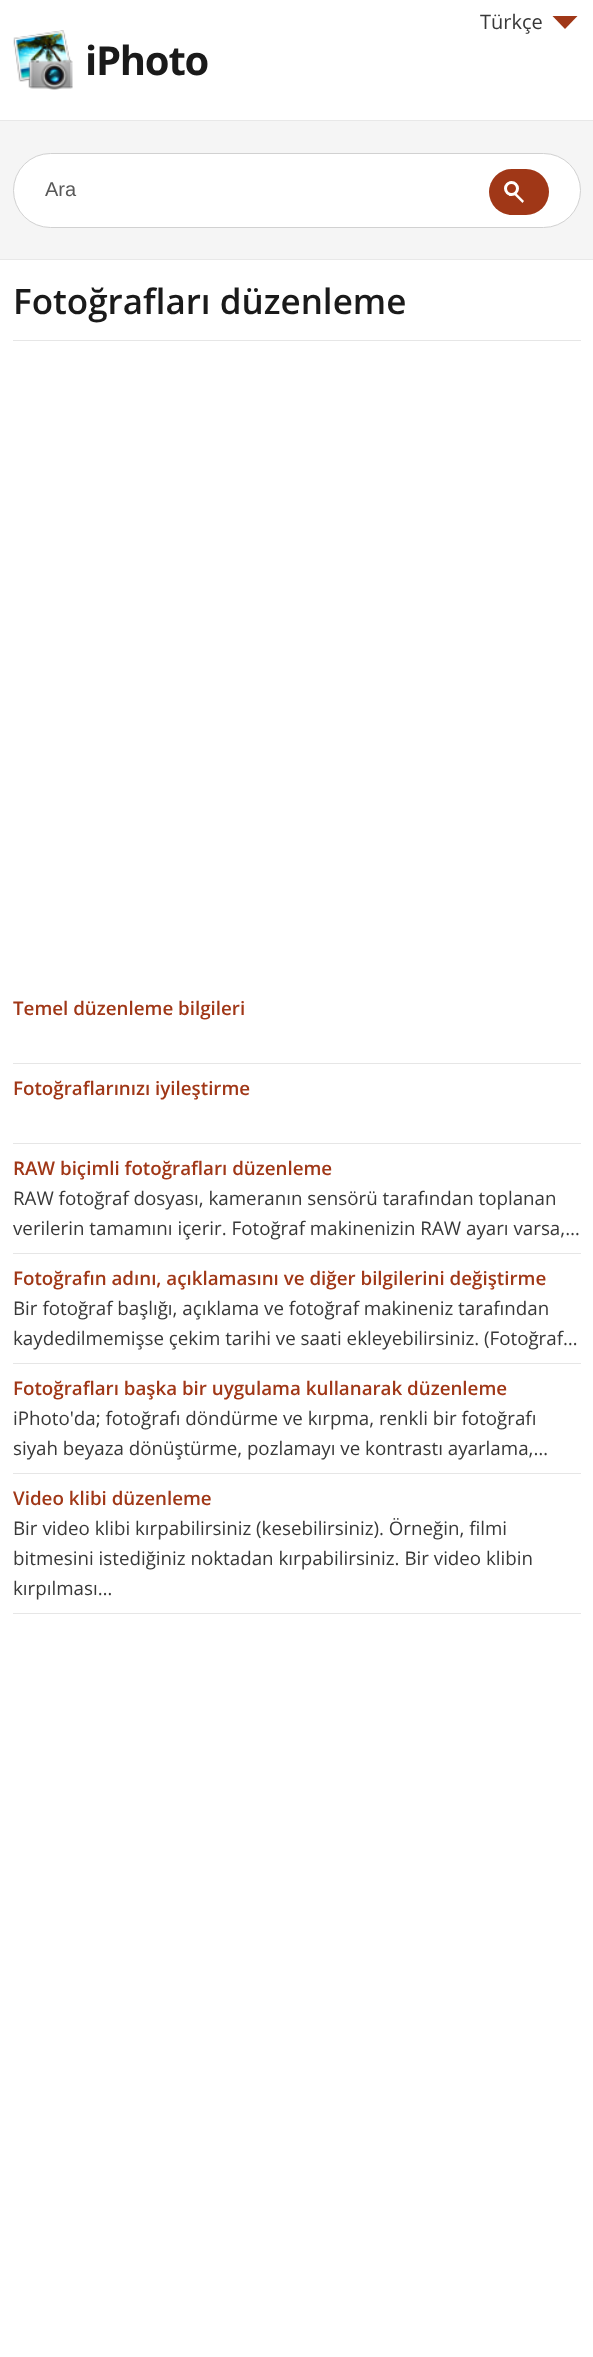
<svg xmlns="http://www.w3.org/2000/svg" width="593" height="2357" viewBox="0 0 593 2357">
  <style>
    .t1 { font: 20px Open Sans; fill: #383838; }
    .t2 { font: bold 40px Open Sans; letter-spacing: -1.25px; fill: #1a1a1a; }
    .t3 { font: 20px Liberation Sans; fill: #595959; }
    .t4 { font: 600 35px Open Sans; fill: #1a1a1a; }
    .t5 { font: 600 18.75px Open Sans; fill: #a03717; }
    .t6 { font: 18.75px Open Sans; fill: #383838; }
  </style>
  <rect width="100%" height="100%" fill="#fff"/>
  <text x="480" y="29" class="t1">Türkçe</text>
  <path d="M552.5 16H577.5L565 29Z" fill="#a03717"/>
  <image x="13" y="30" width="60" height="60" href="images/1.png"/>
  <text x="85" y="75" class="t2">iPhoto</text>
  <rect x="0" y="121" width="593" height="138" fill="#f5f5f5"/>
  <rect x="0" y="120" width="593" height="1" fill="#e8e8e8"/>
  <rect x="0" y="259" width="593" height="1" fill="#e8e8e8"/>
  <rect x="13.5" y="153.5" width="567" height="74" rx="37" fill="#fff" stroke="#d1d1d1"/>
  <text x="45" y="196" class="t3">Ara</text>
  <rect x="489" y="169" width="60" height="46" rx="23" fill="#a03717"/>
  <circle cx="511.5" cy="188.5" r="6" fill="none" stroke="#fff" stroke-width="3"/>
  <path d="M515 192L524 201L522.5 203L513.5 194Z" fill="#fff"/>
  <rect x="13" y="340" width="568" height="1" fill="#e6e6e6"/>
  <text x="13" y="314" class="t4">Fotoğrafları düzenleme</text>
  <text x="13" y="1015" class="t5">Temel düzenleme bilgileri</text>
  <rect x="13" y="1063" width="568" height="1" fill="#e6e6e6"/>
  <text x="13" y="1095" class="t5">Fotoğraflarınızı iyileştirme</text>
  <rect x="13" y="1143" width="568" height="1" fill="#e6e6e6"/>
  <text x="13" y="1175" class="t5">RAW biçimli fotoğrafları düzenleme</text>
  <text x="13" y="1205" class="t6">RAW fotoğraf dosyası, kameranın sensörü tarafından toplanan</text>
  <text x="13" y="1235" class="t6">verilerin tamamını içerir. Fotoğraf makinenizin RAW ayarı varsa,…</text>
  <rect x="13" y="1253" width="568" height="1" fill="#e6e6e6"/>
  <text x="13" y="1285" class="t5">Fotoğrafın adını, açıklamasını ve diğer bilgilerini değiştirme</text>
  <text x="13" y="1315" class="t6">Bir fotoğraf başlığı, açıklama ve fotoğraf makineniz tarafından</text>
  <text x="13" y="1345" class="t6">kaydedilmemişse çekim tarihi ve saati ekleyebilirsiniz. (Fotoğraf…</text>
  <rect x="13" y="1363" width="568" height="1" fill="#e6e6e6"/>
  <text x="13" y="1395" class="t5">Fotoğrafları başka bir uygulama kullanarak düzenleme</text>
  <text x="13" y="1425" class="t6">iPhoto'da; fotoğrafı döndürme ve kırpma, renkli bir fotoğrafı</text>
  <text x="13" y="1455" class="t6">siyah beyaza dönüştürme, pozlamayı ve kontrastı ayarlama,…</text>
  <rect x="13" y="1473" width="568" height="1" fill="#e6e6e6"/>
  <text x="13" y="1505" class="t5">Video klibi düzenleme</text>
  <text x="13" y="1535" class="t6">Bir video klibi kırpabilirsiniz (kesebilirsiniz). Örneğin, filmi</text>
  <text x="13" y="1565" class="t6">bitmesini istediğiniz noktadan kırpabilirsiniz. Bir video klibin</text>
  <text x="13" y="1595" class="t6">kırpılması…</text>
  <rect x="13" y="1613" width="568" height="1" fill="#e6e6e6"/>
</svg>
